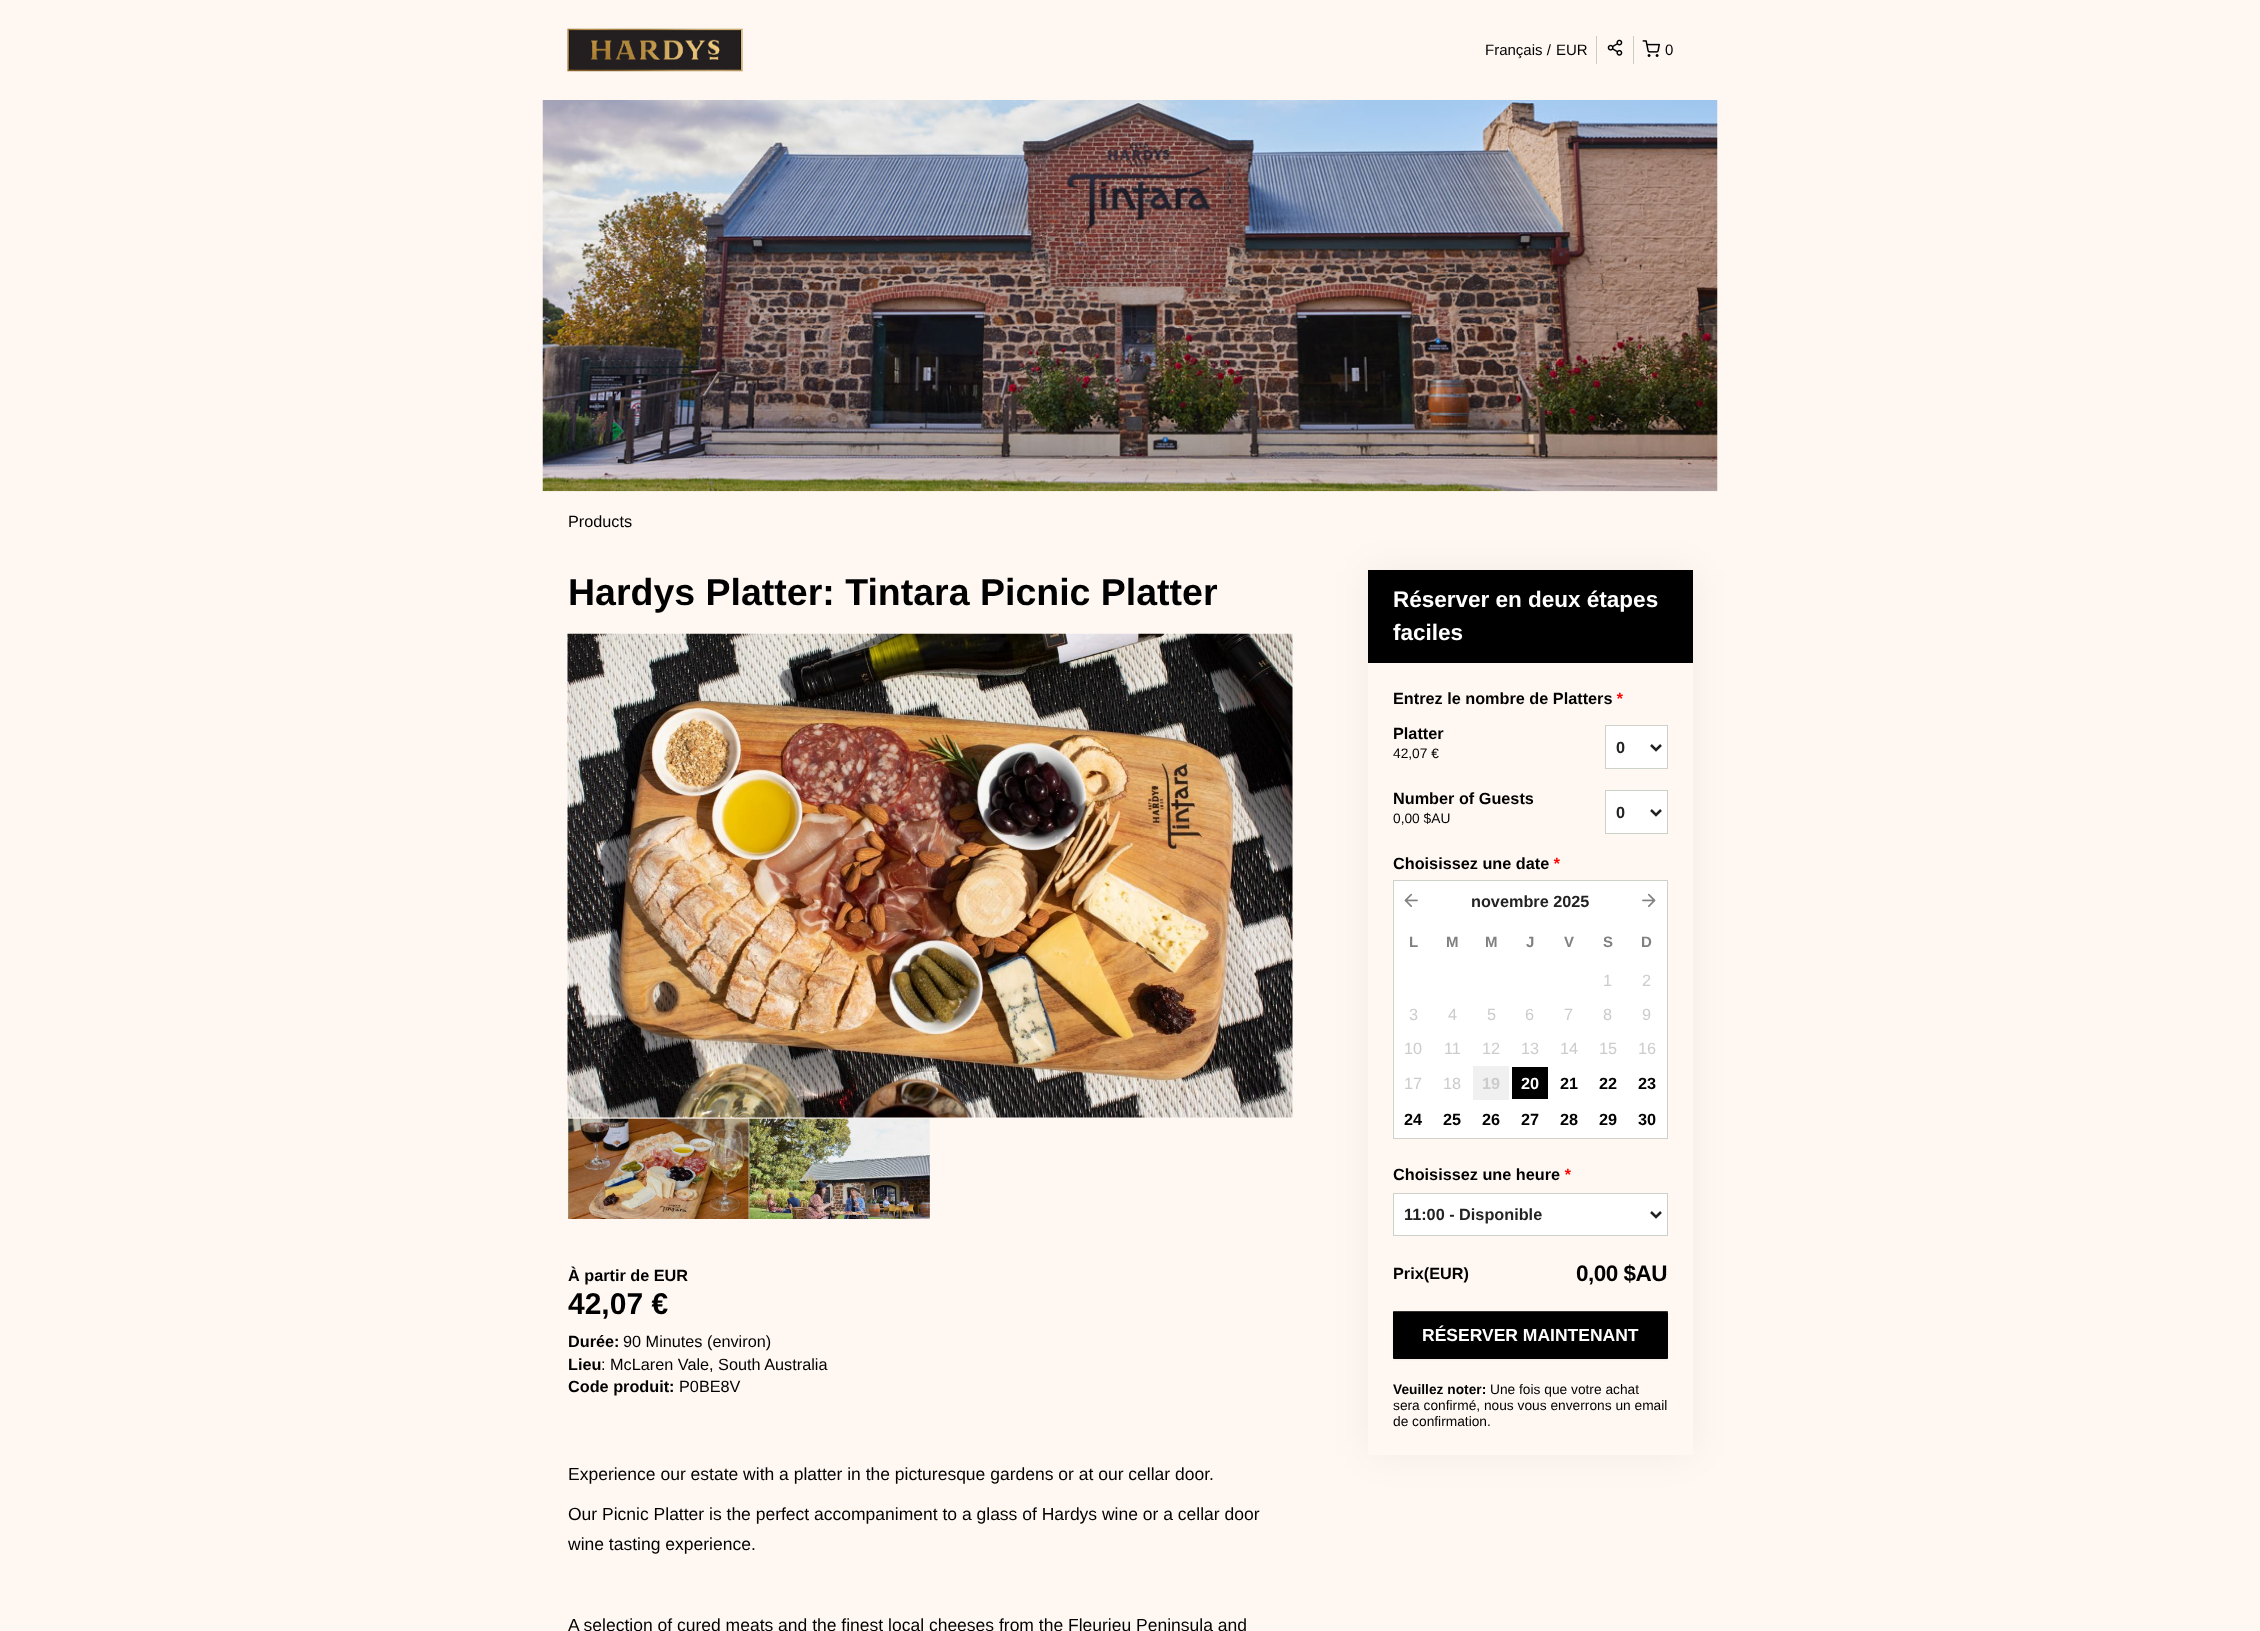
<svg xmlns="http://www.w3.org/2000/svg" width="2260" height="1631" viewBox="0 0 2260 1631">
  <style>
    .t1 { font: 15px Liberation Sans; fill: #000; }
    .t2 { font: 16.25px Liberation Sans; fill: #000; }
    .t3 { font: bold 37.5px Liberation Sans; fill: #000; }
    .t4 { font: bold 16.25px Liberation Sans; fill: #000; }
    .t5 { font: bold 30px Liberation Sans; fill: #000; }
    .t6 { font: 17.5px Liberation Sans; fill: #000; }
    .t7 { font: bold 22.5px Liberation Sans; fill: #fff; }
    .t8 { font: italic bold 16.25px Liberation Sans; fill: #f00; }
    .t9 { font: 13.75px Liberation Sans; fill: #000; }
    .t10 { font: bold 16.25px Liberation Sans; fill: #222; }
    .t11 { font: bold 15px Liberation Sans; fill: #808080; }
    .t12 { font: 16.25px Liberation Sans; fill: #ccc; }
    .t13 { font: bold 16.25px Liberation Sans; fill: #ccc; }
    .t14 { font: bold 16.25px Liberation Sans; fill: #fff; }
    .t15 { font: bold 22.5px Liberation Sans; letter-spacing: -0.5px; fill: #000; }
    .t16 { font: bold 17.5px Liberation Sans; fill: #fff; }
    .t17 { font: bold 13.75px Liberation Sans; fill: #000; }
  </style>
  <rect width="100%" height="100%" fill="#fef7f2"/>
  <image x="567" y="28" width="176" height="44" href="images/1.png"/>
  <rect x="1596" y="36" width="1" height="28" fill="#cbcdc3"/>
  <text x="1485" y="55" class="t1">Français /</text>
  <text x="1556" y="55" class="t1">EUR</text>
  <rect x="1633" y="36" width="1" height="28" fill="#cbcdc3"/>
  <image x="1607" y="39" width="16" height="17" href="images/2.png"/>
  <image x="1642" y="40" width="18" height="17" href="images/3.png"/>
  <text x="1665" y="55" class="t1">0</text>
  <image x="542" y="100" width="1176" height="392" href="images/4.png"/>
  <text x="568" y="527" class="t2">Products</text>
  <text x="568" y="605" class="t3">Hardys Platter: Tintara Picnic Platter</text>
  <image x="567" y="633" width="726" height="485" href="images/5.png"/>
  <image x="568" y="1118" width="181" height="101" href="images/6.png"/>
  <rect x="568" y="1119" width="1" height="100" fill="#98a39480"/>
  <image x="749" y="1118" width="181" height="101" href="images/7.png"/>
  <rect x="749" y="1119" width="1" height="100" fill="#98a39480"/>
  <text x="568" y="1281" class="t4">À partir de EUR</text>
  <text x="568" y="1314" class="t5">42,07 €</text>
  <text x="568" y="1347" class="t4">Durée:</text>
  <text x="623" y="1347" class="t2">90 Minutes (environ)</text>
  <text x="568" y="1370" class="t4">Lieu</text>
  <text x="601" y="1370" class="t2">: McLaren Vale, South Australia</text>
  <text x="568" y="1392" class="t4">Code produit:</text>
  <text x="679" y="1392" class="t2">P0BE8V</text>
  <text x="568" y="1480" class="t6">Experience our estate with a platter in the picturesque gardens or at our cellar door.</text>
  <text x="568" y="1520" class="t6">Our Picnic Platter is the perfect accompaniment to a glass of Hardys wine or a cellar door</text>
  <text x="568" y="1550" class="t6">wine tasting experience.</text>
  <text x="568" y="1631" class="t6">A selection of cured meats and the finest local cheeses from the Fleurieu Peninsula and</text>
  <rect x="1368" y="570" width="325" height="885" fill="#0000000d" filter="blur(19px)"/>
  <rect x="1368" y="663" width="325" height="792" fill="#fef7f2"/>
  <rect x="1368" y="570" width="325" height="93" fill="#000"/>
  <text x="1393" y="607" class="t7">Réserver en deux étapes</text>
  <text x="1393" y="640" class="t7">faciles</text>
  <text x="1393" y="704" class="t4">Entrez le nombre de Platters</text>
  <text x="1616" y="704" class="t8">*</text>
  <text x="1393" y="739" class="t4">Platter</text>
  <text x="1393" y="758" class="t9">42,07 €</text>
  <rect x="1605.5" y="725.5" width="62" height="43" fill="#fff" stroke="#ccd1ca"/>
  <path d="M1651 745L1656 750L1661 745" fill="none" stroke="#222" stroke-width="2.5"/>
  <text x="1616" y="753" class="t10">0</text>
  <text x="1393" y="804" class="t4">Number of Guests</text>
  <text x="1393" y="823" class="t9">0,00 $AU</text>
  <rect x="1605.5" y="790.5" width="62" height="43" fill="#fff" stroke="#ccd1ca"/>
  <path d="M1651 810L1656 815L1661 810" fill="none" stroke="#222" stroke-width="2.5"/>
  <text x="1616" y="818" class="t10">0</text>
  <text x="1393" y="869" class="t4">Choisissez une date</text>
  <text x="1553" y="869" class="t8">*</text>
  <rect x="1393.5" y="880.5" width="274" height="258" fill="#fff" stroke="#ccd1ca"/>
  <image x="1392" y="880" width="1" height="259" href="images/8.png"/>
  <image x="1404" y="893" width="14" height="14" href="images/9.png"/>
  <text x="1471" y="907" class="t10">novembre 2025</text>
  <image x="1642" y="893" width="14" height="14" href="images/10.png"/>
  <text x="1409" y="947" class="t11">L</text>
  <text x="1446" y="947" class="t11">M</text>
  <text x="1485" y="947" class="t11">M</text>
  <text x="1526" y="947" class="t11">J</text>
  <text x="1564" y="947" class="t11">V</text>
  <text x="1603" y="947" class="t11">S</text>
  <text x="1641" y="947" class="t11">D</text>
  <text x="1603" y="986" class="t12">1</text>
  <text x="1642" y="986" class="t12">2</text>
  <text x="1409" y="1020" class="t12">3</text>
  <text x="1448" y="1020" class="t12">4</text>
  <text x="1487" y="1020" class="t12">5</text>
  <text x="1525" y="1020" class="t12">6</text>
  <text x="1564" y="1020" class="t12">7</text>
  <text x="1603" y="1020" class="t12">8</text>
  <text x="1642" y="1020" class="t12">9</text>
  <text x="1404" y="1054" class="t12">10</text>
  <text x="1444" y="1054" class="t12">11</text>
  <text x="1482" y="1054" class="t12">12</text>
  <text x="1521" y="1054" class="t12">13</text>
  <text x="1560" y="1054" class="t12">14</text>
  <text x="1599" y="1054" class="t12">15</text>
  <text x="1638" y="1054" class="t12">16</text>
  <text x="1404" y="1089" class="t12">17</text>
  <text x="1443" y="1089" class="t12">18</text>
  <rect x="1473" y="1066" width="36" height="34" fill="#f0f0f0"/>
  <text x="1482" y="1089" class="t13">19</text>
  <rect x="1512" y="1067" width="36" height="32" fill="#000"/>
  <text x="1521" y="1089" class="t14">20</text>
  <text x="1560" y="1089" class="t4">21</text>
  <text x="1599" y="1089" class="t4">22</text>
  <text x="1638" y="1089" class="t4">23</text>
  <text x="1404" y="1125" class="t4">24</text>
  <text x="1443" y="1125" class="t4">25</text>
  <text x="1482" y="1125" class="t4">26</text>
  <text x="1521" y="1125" class="t4">27</text>
  <text x="1560" y="1125" class="t4">28</text>
  <text x="1599" y="1125" class="t4">29</text>
  <text x="1638" y="1125" class="t4">30</text>
  <text x="1393" y="1180" class="t4">Choisissez une heure</text>
  <text x="1564" y="1180" class="t8">*</text>
  <rect x="1393.5" y="1193.5" width="274" height="42" fill="#fff" stroke="#ccd1ca"/>
  <path d="M1651 1212L1656 1217L1661 1212" fill="none" stroke="#222" stroke-width="2.5"/>
  <text x="1404" y="1220" class="t10">11:00 - Disponible</text>
  <text x="1393" y="1279" class="t4">Prix(EUR)</text>
  <text x="1576" y="1281" class="t15">0,00 $AU</text>
  <rect x="1393" y="1313" width="275" height="47" rx="1" fill="#0000000d" filter="blur(1px)"/>
  <rect x="1393" y="1311" width="275" height="48" rx="1" fill="#000"/>
  <path d="M1394 1312H1666C1667 1312 1668 1313 1668 1314C1668 1313 1668 1311 1667 1311H1394L1393 1312Z" fill="#ffffff33"/>
  <text x="1422" y="1341" class="t16">RÉSERVER MAINTENANT</text>
  <text x="1393" y="1394" class="t17">Veuillez noter:</text>
  <text x="1490" y="1394" class="t9">Une fois que votre achat</text>
  <text x="1393" y="1410" class="t9">sera confirmé, nous vous enverrons un email</text>
  <text x="1393" y="1426" class="t9">de confirmation.</text>
</svg>
